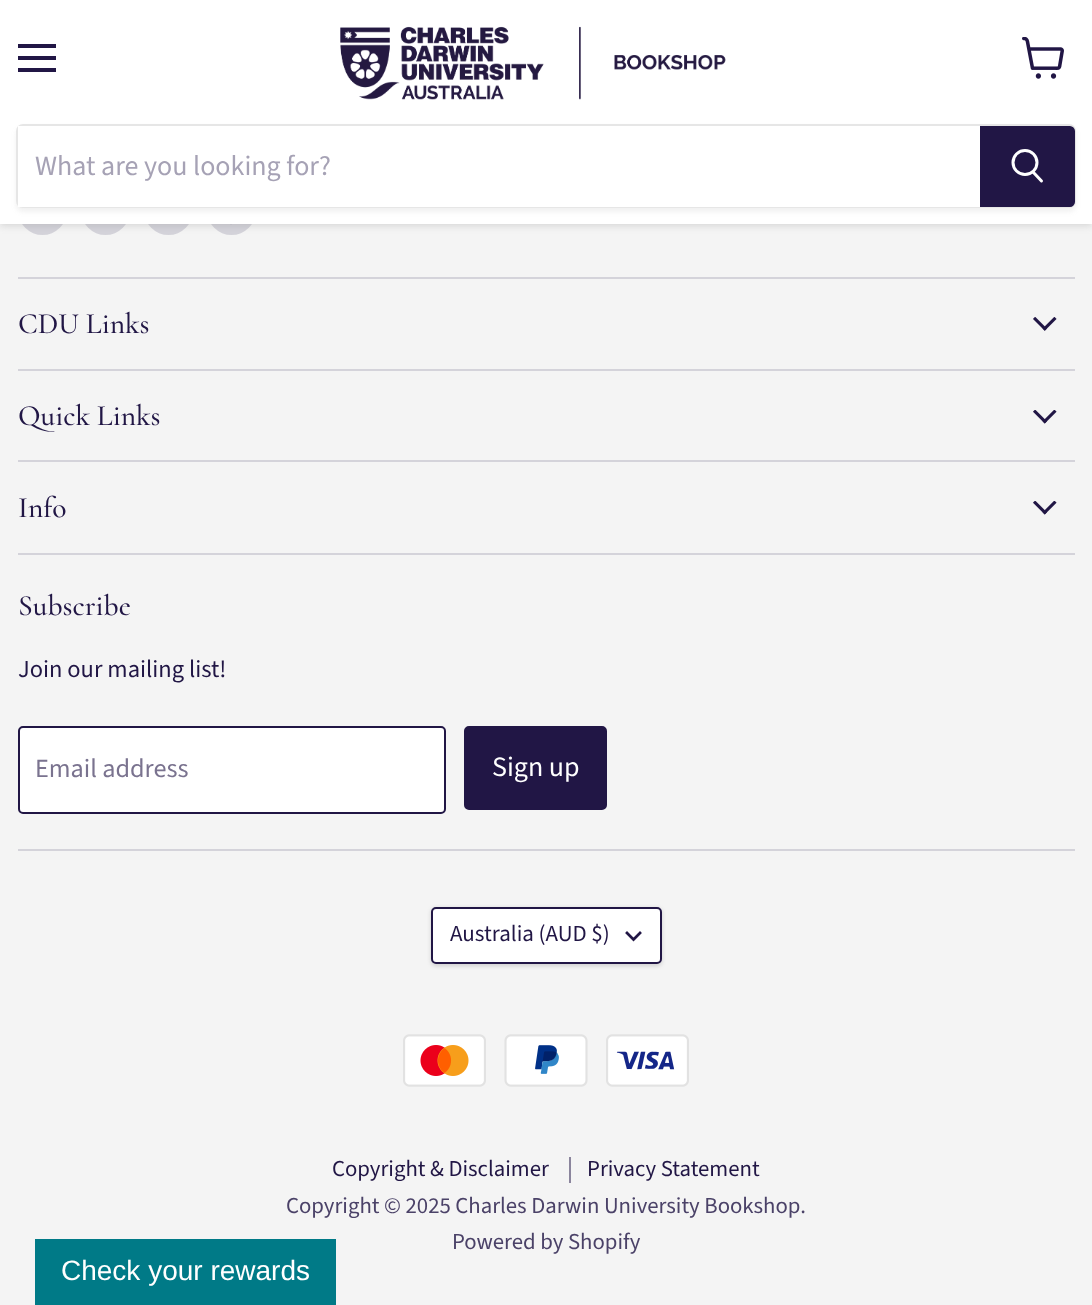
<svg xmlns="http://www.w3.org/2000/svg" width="1092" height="1305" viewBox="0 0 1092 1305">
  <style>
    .t1 { font: 28px Source Sans Pro; fill: #a6a2b5; }
    .t2 { font: 500 29.5px Cormorant; fill: #211645; }
    .t3 { font: 24.5px Source Sans Pro; fill: #211645; }
    .t4 { font: 26.25px Source Sans Pro; fill: #7a738f; }
    .t5 { font: 28px Source Sans Pro; fill: #fff; }
    .t6 { font: 23px Source Sans Pro; fill: #211645; }
    .t7 { font: 22.75px Source Sans Pro; fill: #211645; }
    .t8 { font: 22.75px Source Sans Pro; fill: #4b4268; }
    .t9 { font: 28px Liberation Sans; fill: #fff; }
  </style>
  <rect width="100%" height="100%" fill="#f4f4f4"/>
  <circle cx="42.5" cy="210.5" r="24.5" fill="#d4d3da"/>
  <circle cx="105.5" cy="210.5" r="24.5" fill="#d4d3da"/>
  <circle cx="168.5" cy="210.5" r="24.5" fill="#d4d3da"/>
  <circle cx="231.5" cy="210.5" r="24.5" fill="#d4d3da"/>
  <image x="230" y="224" width="2" height="1" href="images/3.png"/>
  <rect x="0" y="2" width="1092" height="224" fill="#80808040" filter="blur(3.5px)"/>
  <rect x="0" y="0" width="1092" height="224" fill="#fff"/>
  <rect x="18" y="44" width="38" height="4" fill="#211645"/>
  <rect x="18" y="56" width="38" height="4" fill="#211645"/>
  <rect x="18" y="68" width="38" height="4" fill="#211645"/>
  <image x="1022" y="37" width="42" height="42" href="images/1.png"/>
  <image x="340" y="26" width="386" height="74" href="images/2.png"/>
  <rect x="16" y="128" width="1060" height="84" rx="7" fill="#8080801c" filter="blur(2.5px)"/>
  <rect x="17" y="125" width="1058" height="82" rx="6" fill="none" stroke="#e6e6e6" stroke-width="2"/>
  <rect x="18" y="126" width="962" height="81" fill="#fff"/>
  <text x="35" y="175" class="t1">What are you looking for?</text>
  <path d="M981 127H1070C1072 127 1074 129 1074 131V202C1074 204 1072 206 1070 206H981Z" fill="#211645" stroke="#211645" stroke-width="2"/>
  <path d="M1041.5 181L1033.5 172.5" fill="none" stroke="#fff" stroke-width="3" stroke-linecap="round"/>
  <circle cx="1025" cy="162.5" r="12" fill="none" stroke="#fff" stroke-width="3"/>
  <rect x="18" y="277" width="1057" height="2" fill="#d4d3da"/>
  <rect x="18" y="369" width="1057" height="2" fill="#d4d3da"/>
  <text x="18" y="333" class="t2">CDU Links</text>
  <image x="1033" y="317" width="24" height="14" href="images/4.png"/>
  <rect x="18" y="460" width="1057" height="2" fill="#d4d3da"/>
  <text x="18" y="425" class="t2">Quick Links</text>
  <image x="1033" y="410" width="24" height="14" href="images/5.png"/>
  <rect x="18" y="553" width="1057" height="2" fill="#d4d3da"/>
  <text x="18" y="517" class="t2">Info</text>
  <image x="1033" y="501" width="24" height="14" href="images/5.png"/>
  <rect x="18" y="849" width="1057" height="2" fill="#d4d3da"/>
  <text x="18" y="615" class="t2">Subscribe</text>
  <text x="18" y="677" class="t3">Join our mailing list!</text>
  <rect x="19" y="727" width="426" height="86" rx="4" fill="#fff" stroke="#211645" stroke-width="2"/>
  <text x="35" y="777" class="t4">Email address</text>
  <rect x="465" y="727" width="141" height="82" rx="4" fill="#211645" stroke="#211645" stroke-width="2"/>
  <text x="492" y="776" class="t5">Sign up</text>
  <rect x="431" y="908" width="231" height="58" rx="5" fill="#00000026" filter="blur(2px)"/>
  <rect x="432" y="908" width="229" height="55" rx="4" fill="#fff" stroke="#211645" stroke-width="2"/>
  <text x="450" y="941" class="t6">Australia (AUD $)</text>
  <path d="M633.5 939.5L640 933M633.5 939.5L627 933" fill="none" stroke="#211645" stroke-width="2.7" stroke-linecap="square"/>
  <image x="403" y="1034" width="83" height="53" href="images/6.png"/>
  <image x="504" y="1034" width="84" height="53" href="images/7.png"/>
  <image x="606" y="1034" width="83" height="53" href="images/8.png"/>
  <rect x="569" y="1157" width="2" height="26" fill="#8b859d"/>
  <text x="332" y="1176" class="t7">Copyright &amp; Disclaimer</text>
  <text x="587" y="1176" class="t7">Privacy Statement</text>
  <text x="286" y="1213" class="t8">Copyright © 2025 Charles Darwin University Bookshop.</text>
  <text x="452" y="1249" class="t8">Powered by Shopify</text>
  <rect x="35" y="1239" width="301" height="66" fill="#007a87"/>
  <text x="61" y="1280" class="t9">Check your rewards</text>
</svg>
